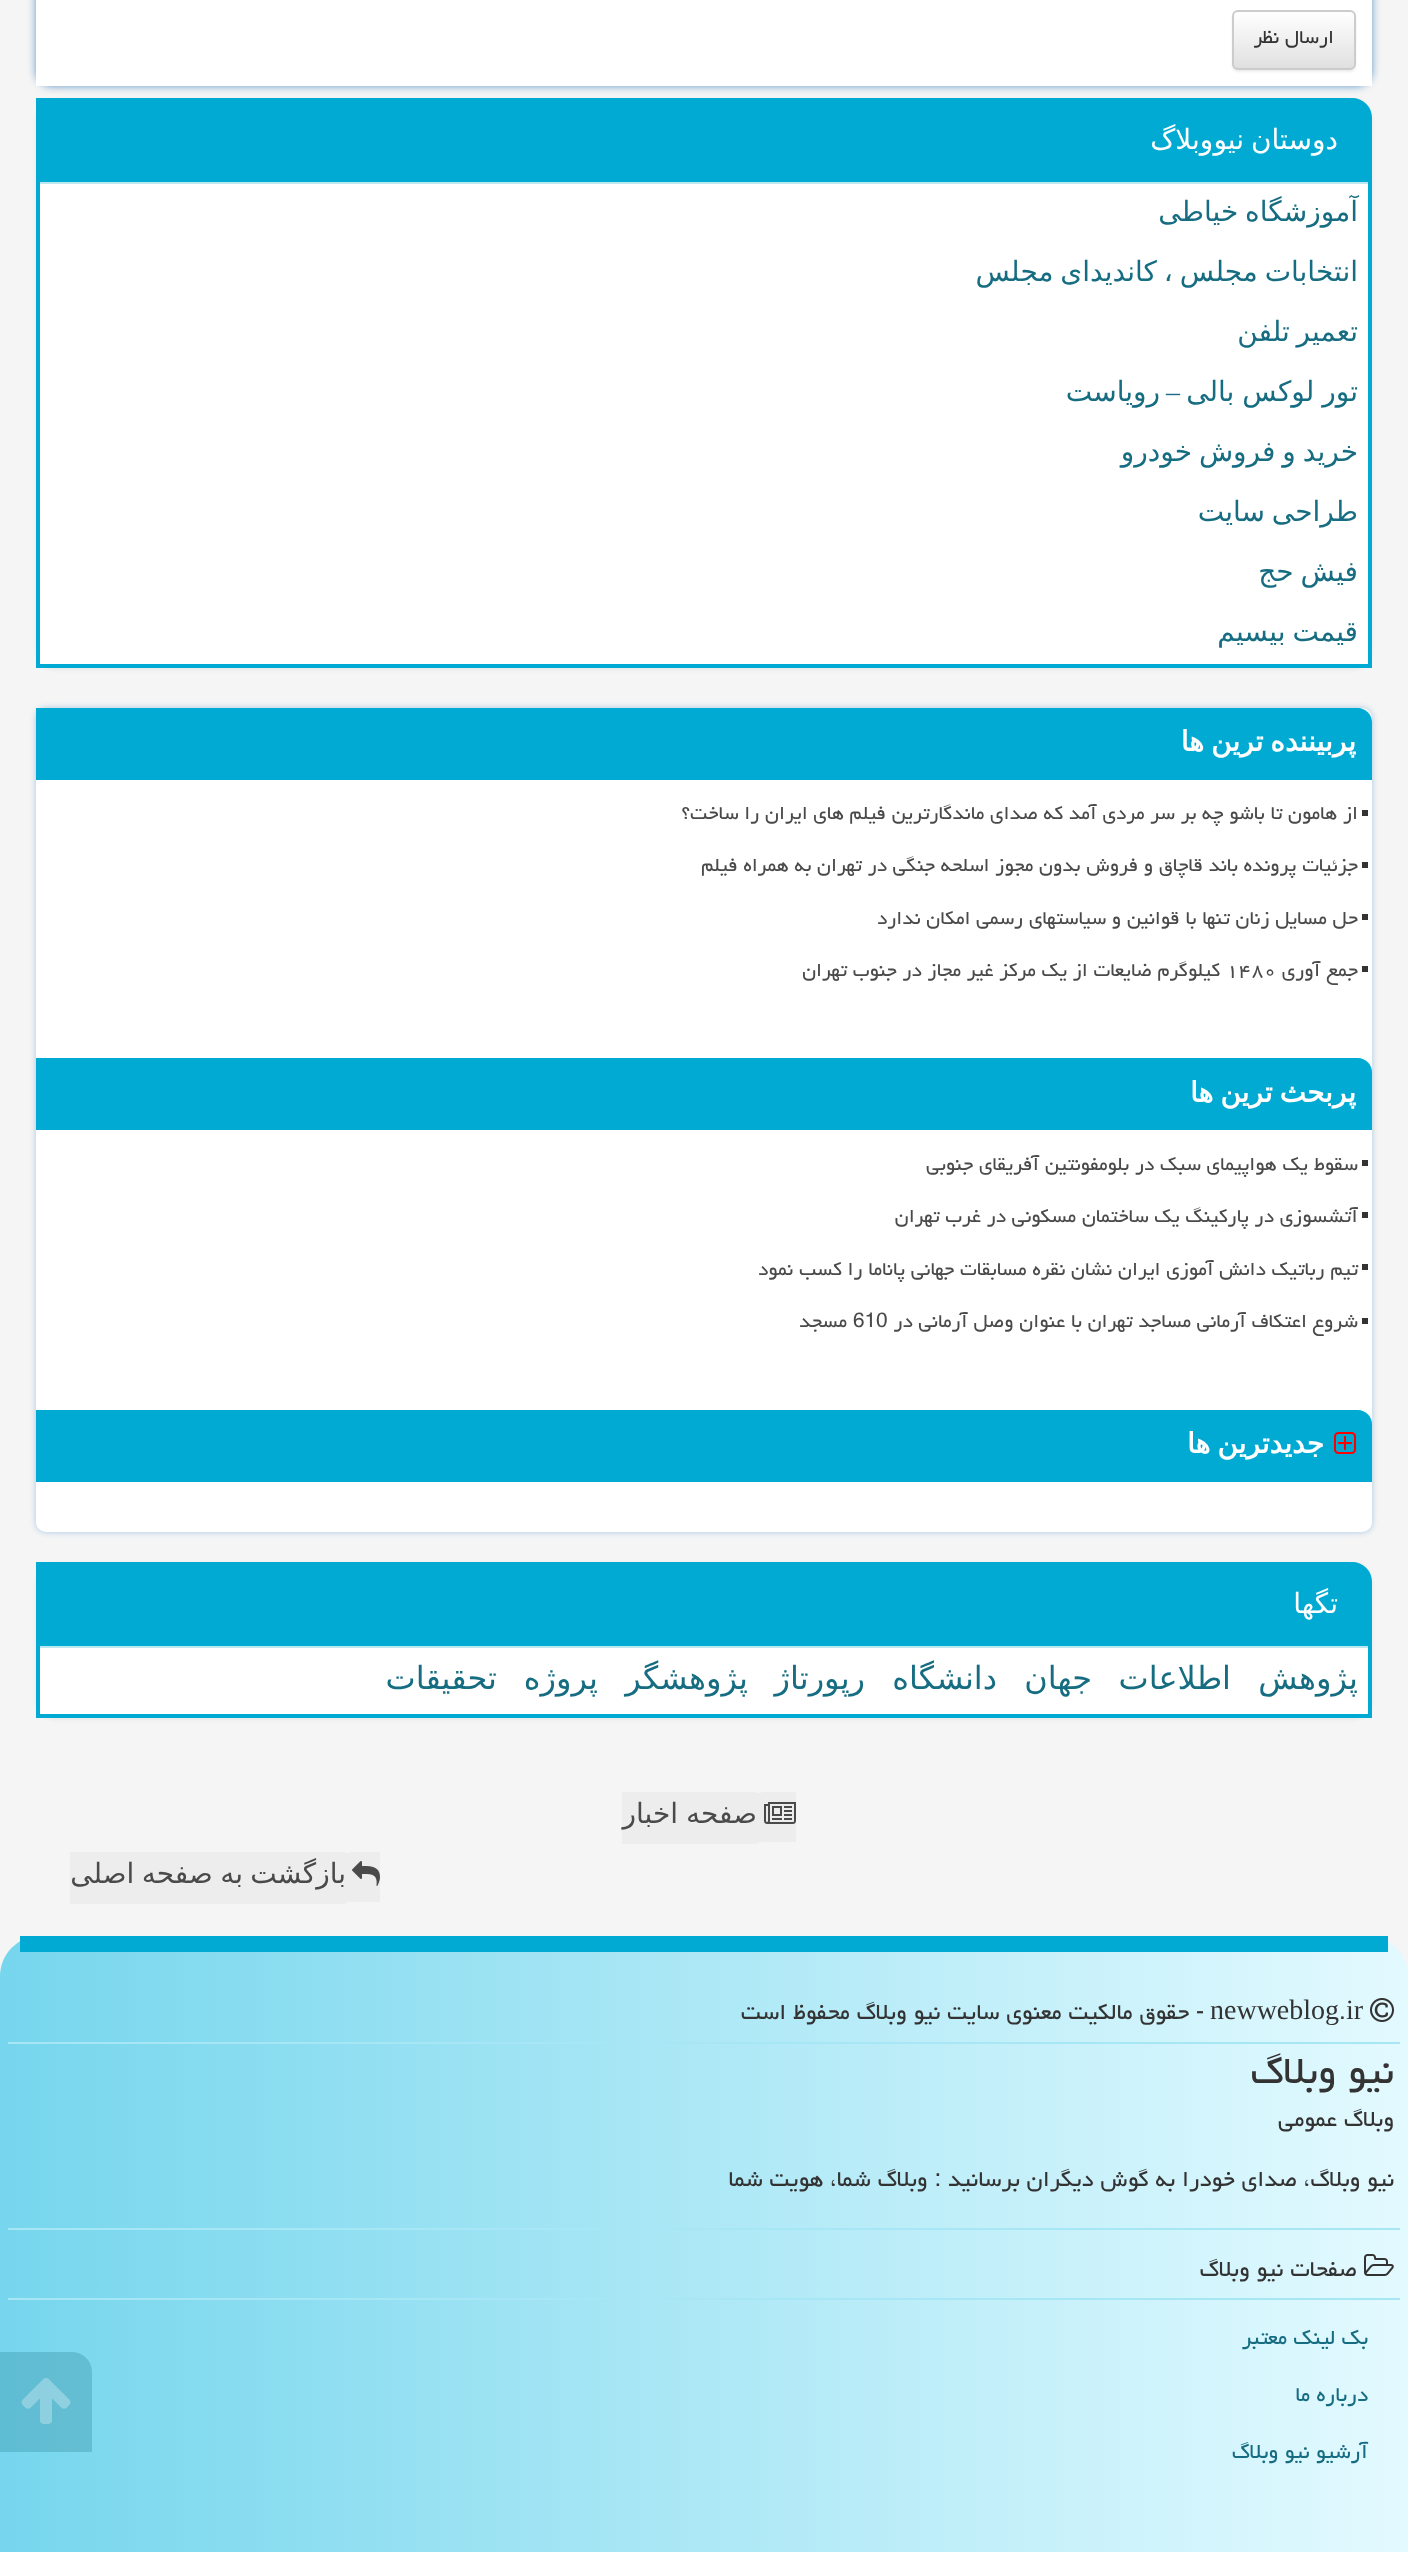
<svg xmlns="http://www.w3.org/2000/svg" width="1408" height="2552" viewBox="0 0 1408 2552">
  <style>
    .t1 { font: 24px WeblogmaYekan; direction: rtl; fill: #333; }
    .t2 { font: 28px DejaVu Sans; direction: rtl; fill: #fff; }
    .t3 { font: 28px DejaVu Sans; direction: rtl; fill: #166d82; }
    .t4 { font: 28px Liberation Serif; direction: rtl; fill: #166d82; }
    .t5 { font: bold 28px DejaVu Sans; direction: rtl; fill: #fff; }
    .t6 { font: 24px WeblogmaYekan; direction: rtl; fill: #4a4a4a; }
    .t7 { font: 24px WeblogmaYekan; fill: #4a4a4a; }
    .t8 { font: 32px DejaVu Sans; direction: rtl; fill: #166d82; }
    .t9 { font: 28px DejaVu Sans; direction: rtl; fill: #4a4a4a; }
    .t10 { font: 28px Liberation Serif; fill: #333; }
    .t11 { font: 28px WeblogmaYekan; direction: rtl; fill: #333; }
    .t12 { font: 28px WeblogmaYekan; fill: #333; }
    .t13 { font: 48px WeblogmaYekan; direction: rtl; fill: #333; }
    .t14 { font: 26px WeblogmaYekan; direction: rtl; fill: #166d82; }
  </style>
  <defs>
    <clipPath id="clip1"><rect x="1232" y="10" width="124" height="60" rx="6"/></clipPath>
    <linearGradient id="g1" gradientUnits="userSpaceOnUse" x1="1294" y1="12" x2="1294" y2="68"><stop offset="0" stop-color="#fff"/><stop offset="1" stop-color="#e0e0e0"/></linearGradient>
    <linearGradient id="g2" gradientUnits="userSpaceOnUse" x1="0" y1="2252" x2="1408" y2="2252"><stop offset="0" stop-color="#76d6ed"/><stop offset="1" stop-color="#e3faff"/></linearGradient>
  </defs>
  <rect width="100%" height="100%" fill="#f5f5f5"/>
  <rect x="36" y="-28" width="1336" height="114" rx="16" fill="#5e97c8" filter="blur(4px)"/>
  <rect x="36" y="0" width="1336" height="86" fill="#fff"/>
  <rect x="1232" y="12" width="124" height="60" rx="6" fill="#00000012" filter="blur(1px)"/>
  <g clip-path="url(#clip1)">
    <rect x="1232" y="12" width="124" height="56" fill="url(#g1)"/>
  </g>
  <rect x="1233" y="11" width="122" height="58" rx="5" fill="none" stroke="#ccc" stroke-width="2"/>
  <text x="1334" y="43" class="t1">ارسال نظر</text>
  <rect x="36" y="100" width="1336" height="570" rx="20" fill="#0000000d" filter="blur(2px)"/>
  <path d="M38 100H1352C1362 100 1370 108 1370 118V666H38Z" fill="#fff" stroke="#00aad3" stroke-width="4"/>
  <path d="M40 102H1356C1362.5 102 1368 107.5 1368 114V184H40Z" fill="#00aad3"/>
  <rect x="40" y="182" width="1328" height="2" fill="#bce8f1"/>
  <text x="1338" y="149" word-spacing="-2" class="t2">دوستان نیووبلاگ</text>
  <text x="1358" y="221" word-spacing="-2" class="t3">آموزشگاه خیاطی</text>
  <text x="1358" y="281" word-spacing="-2" class="t3">انتخابات مجلس ، کاندیدای مجلس</text>
  <text x="1358" y="341" word-spacing="-2" class="t3">تعمیر تلفن</text>
  <text x="1358" y="401" word-spacing="-1" class="t3">تور لوکس بالی</text>
  <text x="1180" y="401" class="t4">–</text>
  <text x="1160" y="401" class="t3">رویاست</text>
  <text x="1358" y="461" word-spacing="-2" class="t3">خرید و فروش خودرو</text>
  <text x="1358" y="521" word-spacing="-2" class="t3">طراحی سایت</text>
  <text x="1358" y="581" word-spacing="-2" class="t3">فیش حج</text>
  <text x="1358" y="641" word-spacing="-2" class="t3">قیمت بیسیم</text>
  <rect x="36" y="708" width="1336" height="824" rx="10" fill="#a6c6e2" filter="blur(3px)"/>
  <rect x="36" y="708" width="1336" height="824" rx="10" fill="#fff"/>
  <path d="M36 708H1358C1365.5 708 1372 714.5 1372 722V780H36Z" fill="#00aad3"/>
  <text x="1356" y="751" word-spacing="-2" class="t5">پربیننده ترین ها</text>
  <rect x="1362" y="810" width="6" height="6" fill="#333"/>
  <text x="1358" y="819" class="t6">از هامون تا باشو چه بر سر مردی آمد که صدای ماندگارترین فیلم های ایران را ساخت؟</text>
  <rect x="1362" y="862" width="6" height="6" fill="#333"/>
  <text x="1358" y="871" class="t6">جزئیات پرونده باند قاچاق و فروش بدون مجوز اسلحه جنگی در تهران به همراه فیلم</text>
  <rect x="1362" y="914" width="6" height="6" fill="#333"/>
  <text x="1358" y="924" class="t6">حل مسایل زنان تنها با قوانین و سیاستهای رسمی امکان ندارد</text>
  <rect x="1362" y="966" width="6" height="6" fill="#333"/>
  <text x="1358" y="976" class="t6">جمع آوری</text>
  <text x="1226" y="976" class="t7">۱۴۸۰</text>
  <text x="1220" y="976" class="t6">کیلوگرم ضایعات از یک مرکز غیر مجاز در جنوب تهران</text>
  <path d="M36 1058H1358C1365.5 1058 1372 1064.5 1372 1072V1130H36Z" fill="#00aad3"/>
  <text x="1356" y="1102" word-spacing="-2" class="t5">پربحث ترین ها</text>
  <rect x="1362" y="1160" width="6" height="6" fill="#333"/>
  <text x="1358" y="1170" class="t6">سقوط یک هواپیمای سبک در بلومفونتین آفریقای جنوبی</text>
  <rect x="1362" y="1212" width="6" height="6" fill="#333"/>
  <text x="1358" y="1222" class="t6">آتشسوزی در پارکینگ یک ساختمان مسکونی در غرب تهران</text>
  <rect x="1362" y="1264" width="6" height="6" fill="#333"/>
  <text x="1358" y="1275" class="t6">تیم رباتیک دانش آموزی ایران نشان نقره مسابقات جهانی پاناما را کسب نمود</text>
  <rect x="1362" y="1318" width="6" height="6" fill="#333"/>
  <text x="1358" y="1327" class="t6">شروع اعتکاف آرمانی مساجد تهران با عنوان وصل آرمانی در</text>
  <text x="853" y="1327" class="t7">610</text>
  <text x="847" y="1327" class="t6">مسجد</text>
  <path d="M36 1410H1358C1365.5 1410 1372 1416.5 1372 1424V1482H36Z" fill="#00aad3"/>
  <image x="1334" y="1432" width="22" height="22" href="images/1.png"/>
  <text x="1324" y="1453" word-spacing="-2" class="t5">جدیدترین ها</text>
  <rect x="36" y="1564" width="1336" height="156" rx="20" fill="#0000000d" filter="blur(2px)"/>
  <path d="M38 1564H1352C1362 1564 1370 1572 1370 1582V1716H38Z" fill="#fff" stroke="#00aad3" stroke-width="4"/>
  <path d="M40 1566H1356C1362.5 1566 1368 1571.5 1368 1578V1648H40Z" fill="#00aad3"/>
  <rect x="40" y="1646" width="1328" height="2" fill="#bce8f1"/>
  <text x="1338" y="1613" class="t2">تگها</text>
  <text x="1358" y="1689" class="t8">پژوهش</text>
  <text x="1231" y="1689" class="t8">اطلاعات</text>
  <text x="1092" y="1689" class="t8">جهان</text>
  <text x="997" y="1689" class="t8">دانشگاه</text>
  <text x="865" y="1689" class="t8">رپورتاژ</text>
  <text x="748" y="1689" class="t8">پژوهشگر</text>
  <text x="598" y="1689" class="t8">پروژه</text>
  <text x="497" y="1689" class="t8">تحقیقات</text>
  <path d="M764 1792H796V1842H764C758.5 1842 754 1837.5 754 1832V1802C754 1796.5 758.5 1792 764 1792Z" fill="#ededed"/>
  <path d="M622 1792H754C759.5 1792 764 1796.5 764 1802V1834C764 1839.5 759.5 1844 754 1844H622Z" fill="#ededed"/>
  <image x="764" y="1802" width="32" height="22" href="images/2.png"/>
  <text x="757" y="1823" word-spacing="-1" class="t9">صفحه اخبار</text>
  <path d="M352 1852H380V1902H352C346.5 1902 342 1897.5 342 1892V1862C342 1856.5 346.5 1852 352 1852Z" fill="#ededed"/>
  <path d="M70 1852H342C347.5 1852 352 1856.5 352 1862V1894C352 1899.5 347.5 1904 342 1904H70Z" fill="#ededed"/>
  <image x="352" y="1861" width="28" height="25" href="images/3.png"/>
  <text x="346" y="1883" word-spacing="-1.5" class="t9">بازگشت به صفحه اصلی</text>
  <path d="M40 1936H1368C1390 1936 1408 1954 1408 1976V2552H0V1976C0 1954 18 1936 40 1936Z" fill="url(#g2)"/>
  <path d="M0 2352H72C83 2352 92 2361 92 2372V2452H0Z" fill="#0e627638"/>
  <image x="21" y="2378" width="50" height="46" href="images/4.png"/>
  <rect x="20" y="1936" width="1368" height="16" fill="#00aad3"/>
  <rect x="8" y="2042" width="1392" height="2" fill="#a7e6f5"/>
  <image x="1370" y="1998" width="24" height="24" href="images/5.png"/>
  <text x="1210" y="2019" class="t10">newweblog ir</text>
  <text x="1204" y="2019" class="t11">- حقوق مالکیت معنوی سایت نیو وبلاگ محفوظ است</text>
  <text x="1339" y="2019" class="t12">.</text>
  <rect x="8" y="2228" width="1392" height="2" fill="#a7e6f5"/>
  <text x="1394" y="2083" class="t13">نیو وبلاگ</text>
  <text x="1394" y="2126" class="t11">وبلاگ عمومی</text>
  <text x="1394" y="2186" class="t11">نیو وبلاگ، صدای خودرا به گوش دیگران برسانید : وبلاگ شما، هویت شما</text>
  <rect x="8" y="2298" width="1392" height="2" fill="#a7e6f5"/>
  <image x="1364" y="2254" width="30" height="22" href="images/6.png"/>
  <text x="1357" y="2276" class="t11">صفحات نیو وبلاگ</text>
  <text x="1368" y="2344" class="t14">بک لینک معتبر</text>
  <text x="1368" y="2401" class="t14">درباره ما</text>
  <text x="1368" y="2458" class="t14">آرشیو نیو وبلاگ</text>
</svg>
